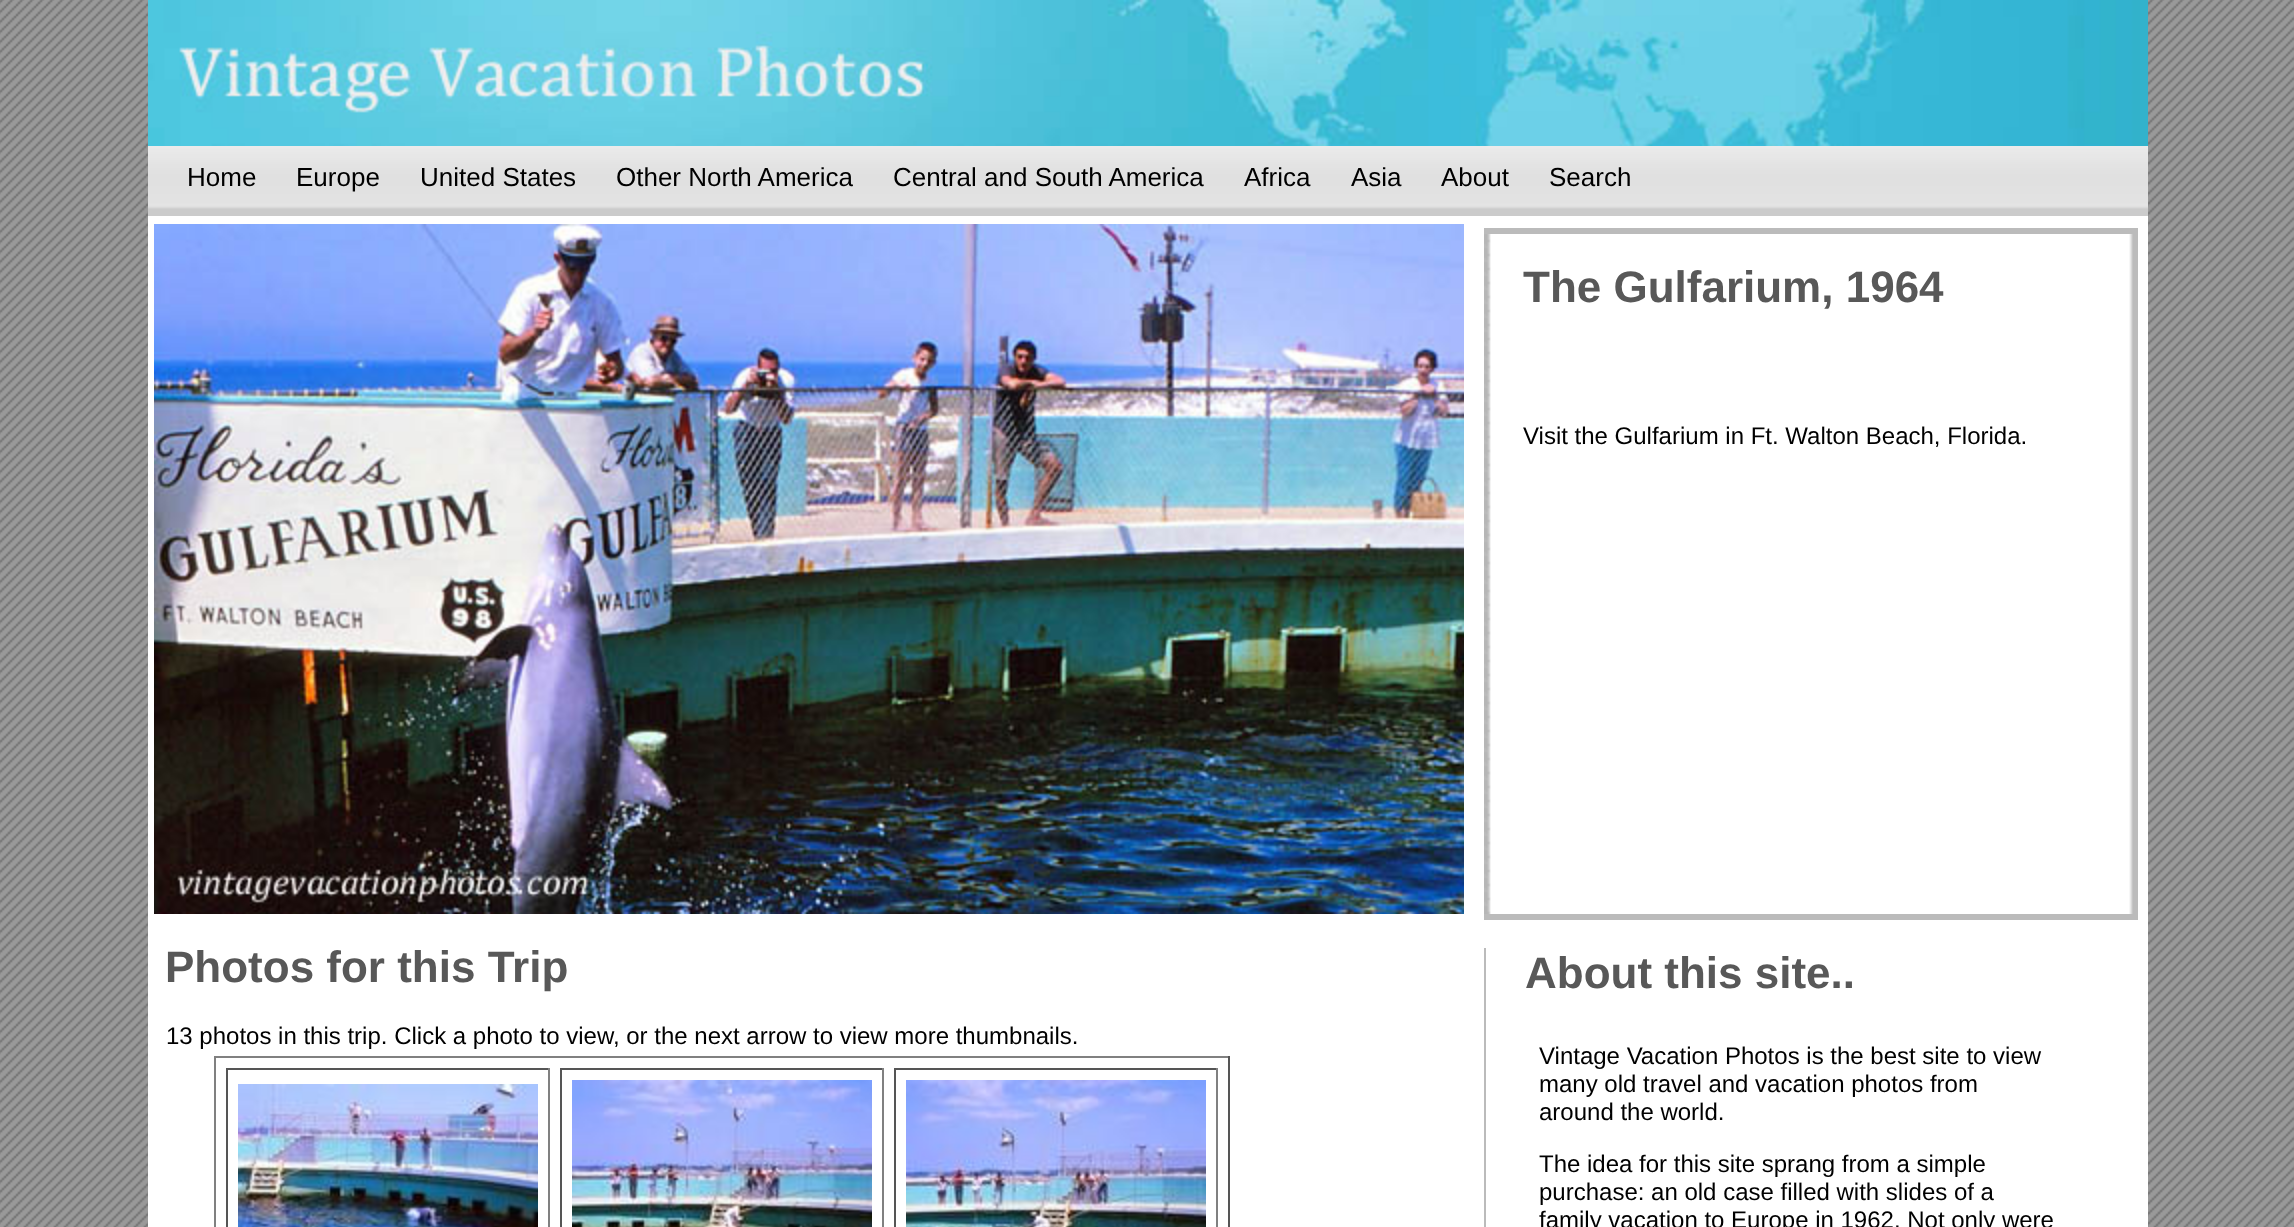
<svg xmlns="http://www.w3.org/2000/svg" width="2294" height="1227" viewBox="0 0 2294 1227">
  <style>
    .t1 { font: 26px Liberation Sans; fill: #000; }
    .t2 { font: bold 44px Liberation Sans; fill: #585858; }
    .t3 { font: 24px Liberation Sans; fill: #000; }
  </style>
  <rect width="100%" height="100%" fill="#fff"/>
  <image x="0" y="0" width="2294" height="1227" href="images/1.png"/>
  <rect x="148" y="216" width="2000" height="1011" fill="#fff"/>
  <image x="148" y="0" width="2000" height="146" href="images/2.png"/>
  <image x="148" y="146" width="2000" height="70" href="images/3.png"/>
  <text x="187" y="186" class="t1">Home</text>
  <text x="296" y="186" class="t1">Europe</text>
  <text x="420" y="186" class="t1">United States</text>
  <text x="616" y="186" class="t1">Other North America</text>
  <text x="893" y="186" class="t1">Central and South America</text>
  <text x="1244" y="186" class="t1">Africa</text>
  <text x="1351" y="186" class="t1">Asia</text>
  <text x="1441" y="186" class="t1">About</text>
  <text x="1549" y="186" class="t1">Search</text>
  <image x="154" y="224" width="1310" height="690" href="images/4.png"/>
  <text x="165" y="982" class="t2">Photos for this Trip</text>
  <text x="166" y="1044" class="t3">13 photos in this trip. Click a photo to view, or the next arrow to view more thumbnails.</text>
  <rect x="214" y="1056" width="1016" height="2" fill="#808080"/>
  <rect x="1228" y="1056" width="2" height="171" fill="#555"/>
  <rect x="214" y="1056" width="2" height="171" fill="#808080"/>
  <rect x="226" y="1068" width="324" height="2" fill="#555"/>
  <rect x="548" y="1068" width="2" height="159" fill="#808080"/>
  <rect x="226" y="1068" width="2" height="159" fill="#555"/>
  <image x="238" y="1084" width="300" height="143" href="images/5.png"/>
  <rect x="560" y="1068" width="324" height="2" fill="#555"/>
  <rect x="882" y="1068" width="2" height="159" fill="#808080"/>
  <rect x="560" y="1068" width="2" height="159" fill="#555"/>
  <image x="572" y="1080" width="300" height="147" href="images/6.png"/>
  <rect x="894" y="1068" width="324" height="2" fill="#555"/>
  <rect x="1216" y="1068" width="2" height="159" fill="#808080"/>
  <rect x="894" y="1068" width="2" height="159" fill="#555"/>
  <image x="906" y="1080" width="300" height="147" href="images/7.png"/>
  <image x="1484" y="234" width="654" height="680" href="images/8.png"/>
  <rect x="1484" y="228" width="654" height="6" fill="#bbb"/>
  <rect x="1484" y="914" width="654" height="6" fill="#bbb"/>
  <text x="1523" y="302" class="t2">The Gulfarium, 1964</text>
  <text x="1523" y="444" class="t3">Visit the Gulfarium in Ft. Walton Beach, Florida.</text>
  <rect x="1484" y="948" width="2" height="279" fill="#bbb"/>
  <text x="1525" y="988" class="t2">About this site..</text>
  <text x="1539" y="1064" class="t3">Vintage Vacation Photos is the best site to view</text>
  <text x="1539" y="1092" class="t3">many old travel and vacation photos from</text>
  <text x="1539" y="1120" class="t3">around the world.</text>
  <text x="1539" y="1172" class="t3">The idea for this site sprang from a simple</text>
  <text x="1539" y="1200" class="t3">purchase: an old case filled with slides of a</text>
  <text x="1539" y="1228" class="t3">family vacation to Europe in 1962. Not only were</text>
</svg>
